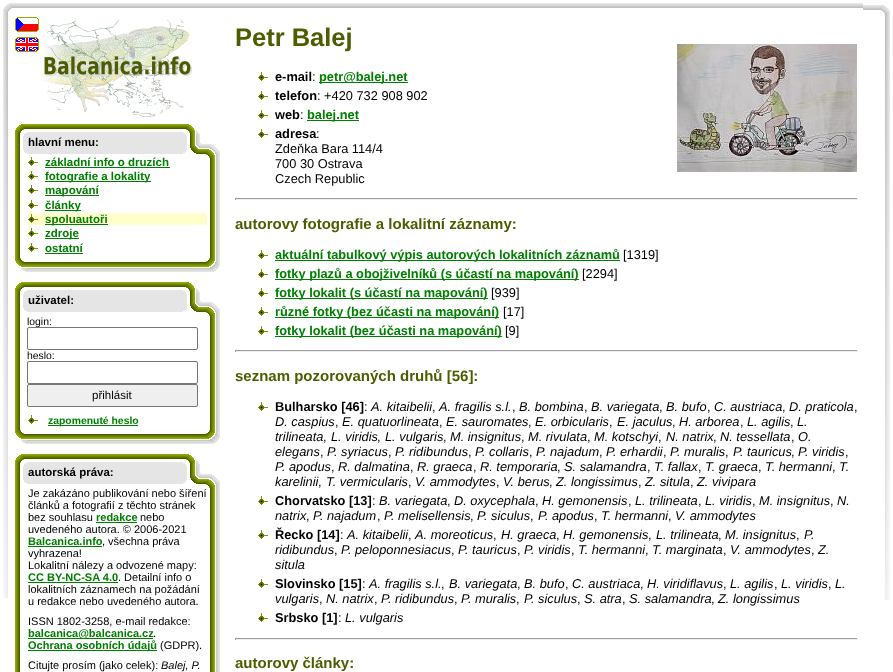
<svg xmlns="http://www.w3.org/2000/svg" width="893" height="672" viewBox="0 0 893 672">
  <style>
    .t1 { font: bold 11.5px Liberation Sans; fill: #000; }
    .t2 { font: bold 11.5px Liberation Sans; fill: #008000; }
    .t3 { font: 10.4px Liberation Sans; fill: #000; }
    .t4 { font: 11.5px Liberation Sans; fill: #000; }
    .t5 { font: bold 10.4px Liberation Sans; fill: #008000; }
    .t6 { font: 11px Liberation Sans; fill: #000; }
    .t7 { font: bold 11px Liberation Sans; fill: #008000; }
    .t8 { font: italic 11px Liberation Sans; fill: #000; }
    .t9 { font: bold 25.5px Liberation Sans; fill: #4e5d00; }
    .t10 { font: bold 12.8px Liberation Sans; fill: #000; }
    .t11 { font: 12.8px Liberation Sans; fill: #000; }
    .t12 { font: bold 12.8px Liberation Sans; fill: #008000; }
    .t13 { font: bold 15px Liberation Sans; fill: #4e5d00; }
    .t14 { font: italic 12.8px Liberation Sans; fill: #000; }
  </style>
  <rect width="100%" height="100%" fill="#fff"/>
  <image x="843" y="5" width="47" height="595" href="images/1.png"/>
  <image x="3" y="3" width="860" height="595" href="images/2.png"/>
  <image x="15" y="17" width="24" height="15" href="images/3.png"/>
  <image x="41" y="19" width="151" height="99" href="images/4.png"/>
  <image x="15" y="37" width="24" height="15" href="images/5.png"/>
  <image x="15" y="159" width="205" height="98" href="images/6.png"/>
  <image x="15" y="124" width="205" height="35" href="images/7.png"/>
  <text x="28" y="146" class="t1">hlavní menu:</text>
  <image x="28" y="157" width="10" height="9" href="images/8.png"/>
  <text x="45" y="166" class="t2">základní info o druzích</text>
  <rect x="45" y="167" width="125" height="1" fill="#008000"/>
  <image x="28" y="171" width="10" height="9" href="images/8.png"/>
  <rect x="45" y="181" width="106" height="1" fill="#008000"/>
  <text x="45" y="180" class="t2">fotografie a lokality</text>
  <image x="28" y="185" width="10" height="9" href="images/8.png"/>
  <rect x="45" y="195" width="54" height="1" fill="#008000"/>
  <text x="45" y="194" class="t2">mapování</text>
  <image x="28" y="200" width="10" height="9" href="images/8.png"/>
  <rect x="45" y="210" width="36" height="1" fill="#008000"/>
  <text x="45" y="209" class="t2">články</text>
  <rect x="28" y="213" width="179" height="12" fill="#ffc"/>
  <image x="28" y="214" width="10" height="9" href="images/9.png"/>
  <rect x="45" y="224" width="63" height="1" fill="#008000"/>
  <text x="45" y="223" class="t2">spoluautoři</text>
  <image x="28" y="228" width="10" height="9" href="images/8.png"/>
  <rect x="45" y="238" width="34" height="1" fill="#008000"/>
  <text x="45" y="237" class="t2">zdroje</text>
  <image x="28" y="243" width="10" height="9" href="images/8.png"/>
  <text x="45" y="252" class="t2">ostatní</text>
  <rect x="45" y="253" width="38" height="1" fill="#008000"/>
  <image x="15" y="257" width="205" height="15" href="images/10.png"/>
  <image x="15" y="317" width="205" height="112" href="images/11.png"/>
  <image x="15" y="282" width="205" height="35" href="images/7.png"/>
  <text x="28" y="304" class="t1">uživatel:</text>
  <text x="27" y="325" class="t3">login:</text>
  <rect x="27.5" y="327.5" width="170" height="22" rx="1.5" fill="#fff" stroke="#767676"/>
  <text x="27" y="359" class="t3">heslo:</text>
  <rect x="27.5" y="361.5" width="170" height="22" rx="1.5" fill="none" stroke="#767676"/>
  <rect x="27.5" y="384.5" width="170" height="22" rx="1.5" fill="#efefef" stroke="#767676"/>
  <text x="92" y="399" class="t4">přihlásit</text>
  <image x="28" y="415" width="10" height="9" href="images/8.png"/>
  <rect x="48" y="425" width="90" height="1" fill="#008000"/>
  <text x="48" y="424" class="t5">zapomenuté heslo</text>
  <image x="15" y="429" width="205" height="15" href="images/10.png"/>
  <image x="15" y="489" width="205" height="183" href="images/12.png"/>
  <image x="15" y="454" width="205" height="35" href="images/7.png"/>
  <text x="28" y="476" class="t1">autorská práva:</text>
  <text x="28" y="497" class="t6">Je zakázáno publikování nebo šíření</text>
  <text x="28" y="509" class="t6">článků a fotografií z těchto stránek</text>
  <text x="28" y="521" class="t6">bez souhlasu</text>
  <text x="96" y="521" class="t7">redakce</text>
  <rect x="96" y="522" width="41" height="1" fill="#008000"/>
  <text x="140" y="521" class="t6">nebo</text>
  <text x="28" y="533" class="t6">uvedeného autora. © 2006-2021</text>
  <text x="28" y="545" class="t7">Balcanica.info</text>
  <rect x="28" y="546" width="74" height="1" fill="#008000"/>
  <text x="102" y="545" class="t6">, všechna práva</text>
  <text x="28" y="557" class="t6">vyhrazena!</text>
  <text x="28" y="569" class="t6">Lokalitní nálezy a odvozené mapy:</text>
  <text x="28" y="581" class="t7">CC BY-NC-SA 4.0</text>
  <rect x="28" y="582" width="90" height="1" fill="#008000"/>
  <text x="118" y="581" class="t6">. Detailní info o</text>
  <text x="28" y="593" class="t6">lokalitních záznamech na požádání</text>
  <text x="28" y="605" class="t6">u redakce nebo uvedeného autora.</text>
  <text x="28" y="625" class="t6">ISSN 1802-3258, e-mail redakce:</text>
  <rect x="28" y="638" width="125" height="1" fill="#008000"/>
  <text x="28" y="637" class="t7">balcanica@balcanica.cz</text>
  <text x="153" y="637" class="t6">.</text>
  <rect x="28" y="650" width="129" height="1" fill="#008000"/>
  <text x="28" y="649" class="t7">Ochrana osobních údajů</text>
  <text x="160" y="649" class="t6">(GDPR).</text>
  <text x="28" y="669" class="t6">Citujte prosím (jako celek):</text>
  <text x="161" y="669" class="t8">Balej, P.</text>
  <text x="235" y="46" class="t9">Petr Balej</text>
  <image x="258" y="72" width="10" height="9" href="images/8.png"/>
  <text x="275" y="81" class="t10">e-mail</text>
  <text x="312" y="81" class="t11">:</text>
  <rect x="319" y="82" width="89" height="1" fill="#008000"/>
  <text x="319" y="81" class="t12">petr@balej.net</text>
  <image x="258" y="91" width="10" height="9" href="images/8.png"/>
  <text x="275" y="100" class="t10">telefon</text>
  <text x="317" y="100" class="t11">: +420 732 908 902</text>
  <image x="258" y="110" width="10" height="9" href="images/8.png"/>
  <text x="275" y="119" class="t10">web</text>
  <text x="300" y="119" class="t11">:</text>
  <rect x="307" y="120" width="52" height="1" fill="#008000"/>
  <text x="307" y="119" class="t12">balej.net</text>
  <image x="258" y="129" width="10" height="9" href="images/8.png"/>
  <text x="275" y="138" class="t10">adresa</text>
  <text x="316" y="138" class="t11">:</text>
  <text x="275" y="153" class="t11">Zdeňka Bara 114/4</text>
  <text x="275" y="168" class="t11">700 30 Ostrava</text>
  <text x="275" y="183" class="t11">Czech Republic</text>
  <image x="677" y="44" width="180" height="128" href="images/13.png"/>
  <rect x="235" y="198" width="623" height="1" fill="#9f9f9f"/>
  <rect x="857" y="198" width="1" height="2" fill="#eee"/>
  <rect x="235" y="199" width="623" height="1" fill="#eee"/>
  <rect x="235" y="198" width="1" height="2" fill="#9f9f9f"/>
  <text x="235" y="229" class="t13">autorovy fotografie a lokalitní záznamy:</text>
  <image x="258" y="250" width="10" height="9" href="images/8.png"/>
  <rect x="275" y="260" width="345" height="1" fill="#008000"/>
  <text x="275" y="259" class="t12">aktuální tabulkový výpis autorových lokalitních záznamů</text>
  <text x="623" y="259" class="t11">[1319]</text>
  <image x="258" y="269" width="10" height="9" href="images/8.png"/>
  <rect x="275" y="279" width="304" height="1" fill="#008000"/>
  <text x="275" y="278" class="t12">fotky plazů a obojživelníků (s účastí na mapování)</text>
  <text x="582" y="278" class="t11">[2294]</text>
  <image x="258" y="288" width="10" height="9" href="images/8.png"/>
  <rect x="275" y="298" width="213" height="1" fill="#008000"/>
  <text x="275" y="297" class="t12">fotky lokalit (s účastí na mapování)</text>
  <text x="491" y="297" class="t11">[939]</text>
  <image x="258" y="307" width="10" height="9" href="images/8.png"/>
  <rect x="275" y="317" width="224" height="1" fill="#008000"/>
  <text x="275" y="316" class="t12">různé fotky (bez účasti na mapování)</text>
  <text x="503" y="316" class="t11">[17]</text>
  <image x="258" y="326" width="10" height="9" href="images/8.png"/>
  <rect x="275" y="336" width="227" height="1" fill="#008000"/>
  <text x="275" y="335" class="t12">fotky lokalit (bez účasti na mapování)</text>
  <text x="505" y="335" class="t11">[9]</text>
  <rect x="235" y="350" width="623" height="1" fill="#9f9f9f"/>
  <rect x="857" y="350" width="1" height="2" fill="#eee"/>
  <rect x="235" y="351" width="623" height="1" fill="#eee"/>
  <rect x="235" y="350" width="1" height="2" fill="#9f9f9f"/>
  <text x="235" y="381" class="t13">seznam pozorovaných druhů [56]:</text>
  <image x="258" y="402" width="10" height="9" href="images/8.png"/>
  <text x="275" y="411" class="t10">Bulharsko [46]</text>
  <text x="364" y="411" class="t11">:</text>
  <text x="371" y="411" class="t14">A. kitaibelii</text>
  <text x="432" y="411" class="t11">,</text>
  <text x="439" y="411" class="t14">A. fragilis s.l.</text>
  <text x="512" y="411" class="t11">,</text>
  <text x="519" y="411" class="t14">B. bombina</text>
  <text x="584" y="411" class="t11">,</text>
  <text x="591" y="411" class="t14">B. variegata</text>
  <text x="659" y="411" class="t11">,</text>
  <text x="666" y="411" class="t14">B. bufo</text>
  <text x="707" y="411" class="t11">,</text>
  <text x="714" y="411" class="t14">C. austriaca</text>
  <text x="782" y="411" class="t11">,</text>
  <text x="789" y="411" class="t14">D. praticola</text>
  <text x="854" y="411" class="t11">,</text>
  <text x="275" y="426" class="t14">D. caspius</text>
  <text x="335" y="426" class="t11">,</text>
  <text x="342" y="426" class="t14">E. quatuorlineata</text>
  <text x="439" y="426" class="t11">,</text>
  <text x="446" y="426" class="t14">E. sauromates</text>
  <text x="528" y="426" class="t11">,</text>
  <text x="535" y="426" class="t14">E. orbicularis</text>
  <text x="609" y="426" class="t11">,</text>
  <text x="617" y="426" class="t14">E. jaculus</text>
  <text x="672" y="426" class="t11">,</text>
  <text x="679" y="426" class="t14">H. arborea</text>
  <text x="740" y="426" class="t11">,</text>
  <text x="747" y="426" class="t14">L. agilis</text>
  <text x="790" y="426" class="t11">,</text>
  <text x="797" y="426" class="t14">L.</text>
  <text x="275" y="441" class="t14">trilineata</text>
  <text x="323" y="441" class="t11">,</text>
  <text x="331" y="441" class="t14">L. viridis</text>
  <text x="377" y="441" class="t11">,</text>
  <text x="385" y="441" class="t14">L. vulgaris</text>
  <text x="443" y="441" class="t11">,</text>
  <text x="450" y="441" class="t14">M. insignitus</text>
  <text x="521" y="441" class="t11">,</text>
  <text x="528" y="441" class="t14">M. rivulata</text>
  <text x="587" y="441" class="t11">,</text>
  <text x="594" y="441" class="t14">M. kotschyi</text>
  <text x="658" y="441" class="t11">,</text>
  <text x="666" y="441" class="t14">N. natrix</text>
  <text x="713" y="441" class="t11">,</text>
  <text x="720" y="441" class="t14">N. tessellata</text>
  <text x="791" y="441" class="t11">,</text>
  <text x="798" y="441" class="t14">O.</text>
  <text x="275" y="456" class="t14">elegans</text>
  <text x="320" y="456" class="t11">,</text>
  <text x="327" y="456" class="t14">P. syriacus</text>
  <text x="388" y="456" class="t11">,</text>
  <text x="395" y="456" class="t14">P. ridibundus</text>
  <text x="468" y="456" class="t11">,</text>
  <text x="475" y="456" class="t14">P. collaris</text>
  <text x="529" y="456" class="t11">,</text>
  <text x="536" y="456" class="t14">P. najadum</text>
  <text x="599" y="456" class="t11">,</text>
  <text x="606" y="456" class="t14">P. erhardii</text>
  <text x="663" y="456" class="t11">,</text>
  <text x="670" y="456" class="t14">P. muralis</text>
  <text x="725" y="456" class="t11">,</text>
  <text x="733" y="456" class="t14">P. tauricus</text>
  <text x="791" y="456" class="t11">,</text>
  <text x="798" y="456" class="t14">P. viridis</text>
  <text x="845" y="456" class="t11">,</text>
  <text x="275" y="471" class="t14">P. apodus</text>
  <text x="331" y="471" class="t11">,</text>
  <text x="338" y="471" class="t14">R. dalmatina</text>
  <text x="410" y="471" class="t11">,</text>
  <text x="417" y="471" class="t14">R. graeca</text>
  <text x="473" y="471" class="t11">,</text>
  <text x="480" y="471" class="t14">R. temporaria</text>
  <text x="557" y="471" class="t11">,</text>
  <text x="564" y="471" class="t14">S. salamandra</text>
  <text x="647" y="471" class="t11">,</text>
  <text x="654" y="471" class="t14">T. fallax</text>
  <text x="698" y="471" class="t11">,</text>
  <text x="705" y="471" class="t14">T. graeca</text>
  <text x="758" y="471" class="t11">,</text>
  <text x="765" y="471" class="t14">T. hermanni</text>
  <text x="832" y="471" class="t11">,</text>
  <text x="839" y="471" class="t14">T.</text>
  <text x="275" y="486" class="t14">karelinii</text>
  <text x="318" y="486" class="t11">,</text>
  <text x="326" y="486" class="t14">T. vermicularis</text>
  <text x="408" y="486" class="t11">,</text>
  <text x="415" y="486" class="t14">V. ammodytes</text>
  <text x="496" y="486" class="t11">,</text>
  <text x="503" y="486" class="t14">V. berus</text>
  <text x="549" y="486" class="t11">,</text>
  <text x="556" y="486" class="t14">Z. longissimus</text>
  <text x="638" y="486" class="t11">,</text>
  <text x="645" y="486" class="t14">Z. situla</text>
  <text x="690" y="486" class="t11">,</text>
  <text x="697" y="486" class="t14">Z. vivipara</text>
  <image x="258" y="496" width="10" height="9" href="images/8.png"/>
  <text x="275" y="505" class="t10">Chorvatsko [13]</text>
  <text x="372" y="505" class="t11">:</text>
  <text x="379" y="505" class="t14">B. variegata</text>
  <text x="447" y="505" class="t11">,</text>
  <text x="454" y="505" class="t14">D. oxycephala</text>
  <text x="535" y="505" class="t11">,</text>
  <text x="542" y="505" class="t14">H. gemonensis</text>
  <text x="628" y="505" class="t11">,</text>
  <text x="635" y="505" class="t14">L. trilineata</text>
  <text x="698" y="505" class="t11">,</text>
  <text x="705" y="505" class="t14">L. viridis</text>
  <text x="752" y="505" class="t11">,</text>
  <text x="759" y="505" class="t14">M. insignitus</text>
  <text x="830" y="505" class="t11">,</text>
  <text x="837" y="505" class="t14">N.</text>
  <text x="275" y="520" class="t14">natrix</text>
  <text x="306" y="520" class="t11">,</text>
  <text x="313" y="520" class="t14">P. najadum</text>
  <text x="377" y="520" class="t11">,</text>
  <text x="384" y="520" class="t14">P. melisellensis</text>
  <text x="470" y="520" class="t11">,</text>
  <text x="477" y="520" class="t14">P. siculus</text>
  <text x="530" y="520" class="t11">,</text>
  <text x="538" y="520" class="t14">P. apodus</text>
  <text x="594" y="520" class="t11">,</text>
  <text x="601" y="520" class="t14">T. hermanni</text>
  <text x="668" y="520" class="t11">,</text>
  <text x="675" y="520" class="t14">V. ammodytes</text>
  <image x="258" y="530" width="10" height="9" href="images/8.png"/>
  <text x="275" y="539" class="t10">Řecko [14]</text>
  <text x="340" y="539" class="t11">:</text>
  <text x="347" y="539" class="t14">A. kitaibelii</text>
  <text x="408" y="539" class="t11">,</text>
  <text x="415" y="539" class="t14">A. moreoticus</text>
  <text x="493" y="539" class="t11">,</text>
  <text x="501" y="539" class="t14">H. graeca</text>
  <text x="556" y="539" class="t11">,</text>
  <text x="563" y="539" class="t14">H. gemonensis</text>
  <text x="648" y="539" class="t11">,</text>
  <text x="656" y="539" class="t14">L. trilineata</text>
  <text x="718" y="539" class="t11">,</text>
  <text x="725" y="539" class="t14">M. insignitus</text>
  <text x="796" y="539" class="t11">,</text>
  <text x="804" y="539" class="t14">P.</text>
  <text x="275" y="554" class="t14">ridibundus</text>
  <text x="334" y="554" class="t11">,</text>
  <text x="341" y="554" class="t14">P. peloponnesiacus</text>
  <text x="451" y="554" class="t11">,</text>
  <text x="458" y="554" class="t14">P. tauricus</text>
  <text x="517" y="554" class="t11">,</text>
  <text x="524" y="554" class="t14">P. viridis</text>
  <text x="571" y="554" class="t11">,</text>
  <text x="578" y="554" class="t14">T. hermanni</text>
  <text x="645" y="554" class="t11">,</text>
  <text x="652" y="554" class="t14">T. marginata</text>
  <text x="723" y="554" class="t11">,</text>
  <text x="730" y="554" class="t14">V. ammodytes</text>
  <text x="811" y="554" class="t11">,</text>
  <text x="818" y="554" class="t14">Z.</text>
  <text x="275" y="569" class="t14">situla</text>
  <image x="258" y="579" width="10" height="9" href="images/8.png"/>
  <text x="275" y="588" class="t10">Slovinsko [15]</text>
  <text x="362" y="588" class="t11">:</text>
  <text x="369" y="588" class="t14">A. fragilis s.l.</text>
  <text x="441" y="588" class="t11">,</text>
  <text x="449" y="588" class="t14">B. variegata</text>
  <text x="517" y="588" class="t11">,</text>
  <text x="524" y="588" class="t14">B. bufo</text>
  <text x="565" y="588" class="t11">,</text>
  <text x="572" y="588" class="t14">C. austriaca</text>
  <text x="640" y="588" class="t11">,</text>
  <text x="647" y="588" class="t14">H. viridiflavus</text>
  <text x="723" y="588" class="t11">,</text>
  <text x="730" y="588" class="t14">L. agilis</text>
  <text x="774" y="588" class="t11">,</text>
  <text x="781" y="588" class="t14">L. viridis</text>
  <text x="828" y="588" class="t11">,</text>
  <text x="835" y="588" class="t14">L.</text>
  <text x="275" y="603" class="t14">vulgaris</text>
  <text x="319" y="603" class="t11">,</text>
  <text x="326" y="603" class="t14">N. natrix</text>
  <text x="374" y="603" class="t11">,</text>
  <text x="381" y="603" class="t14">P. ridibundus</text>
  <text x="454" y="603" class="t11">,</text>
  <text x="461" y="603" class="t14">P. muralis</text>
  <text x="516" y="603" class="t11">,</text>
  <text x="524" y="603" class="t14">P. siculus</text>
  <text x="577" y="603" class="t11">,</text>
  <text x="584" y="603" class="t14">S. atra</text>
  <text x="622" y="603" class="t11">,</text>
  <text x="629" y="603" class="t14">S. salamandra</text>
  <text x="711" y="603" class="t11">,</text>
  <text x="718" y="603" class="t14">Z. longissimus</text>
  <image x="258" y="613" width="10" height="9" href="images/8.png"/>
  <text x="275" y="622" class="t10">Srbsko [1]</text>
  <text x="338" y="622" class="t11">:</text>
  <text x="345" y="622" class="t14">L. vulgaris</text>
  <rect x="235" y="638" width="623" height="1" fill="#9f9f9f"/>
  <rect x="857" y="638" width="1" height="2" fill="#eee"/>
  <rect x="235" y="639" width="623" height="1" fill="#eee"/>
  <rect x="235" y="638" width="1" height="2" fill="#9f9f9f"/>
  <text x="235" y="668" class="t13">autorovy články:</text>
</svg>
